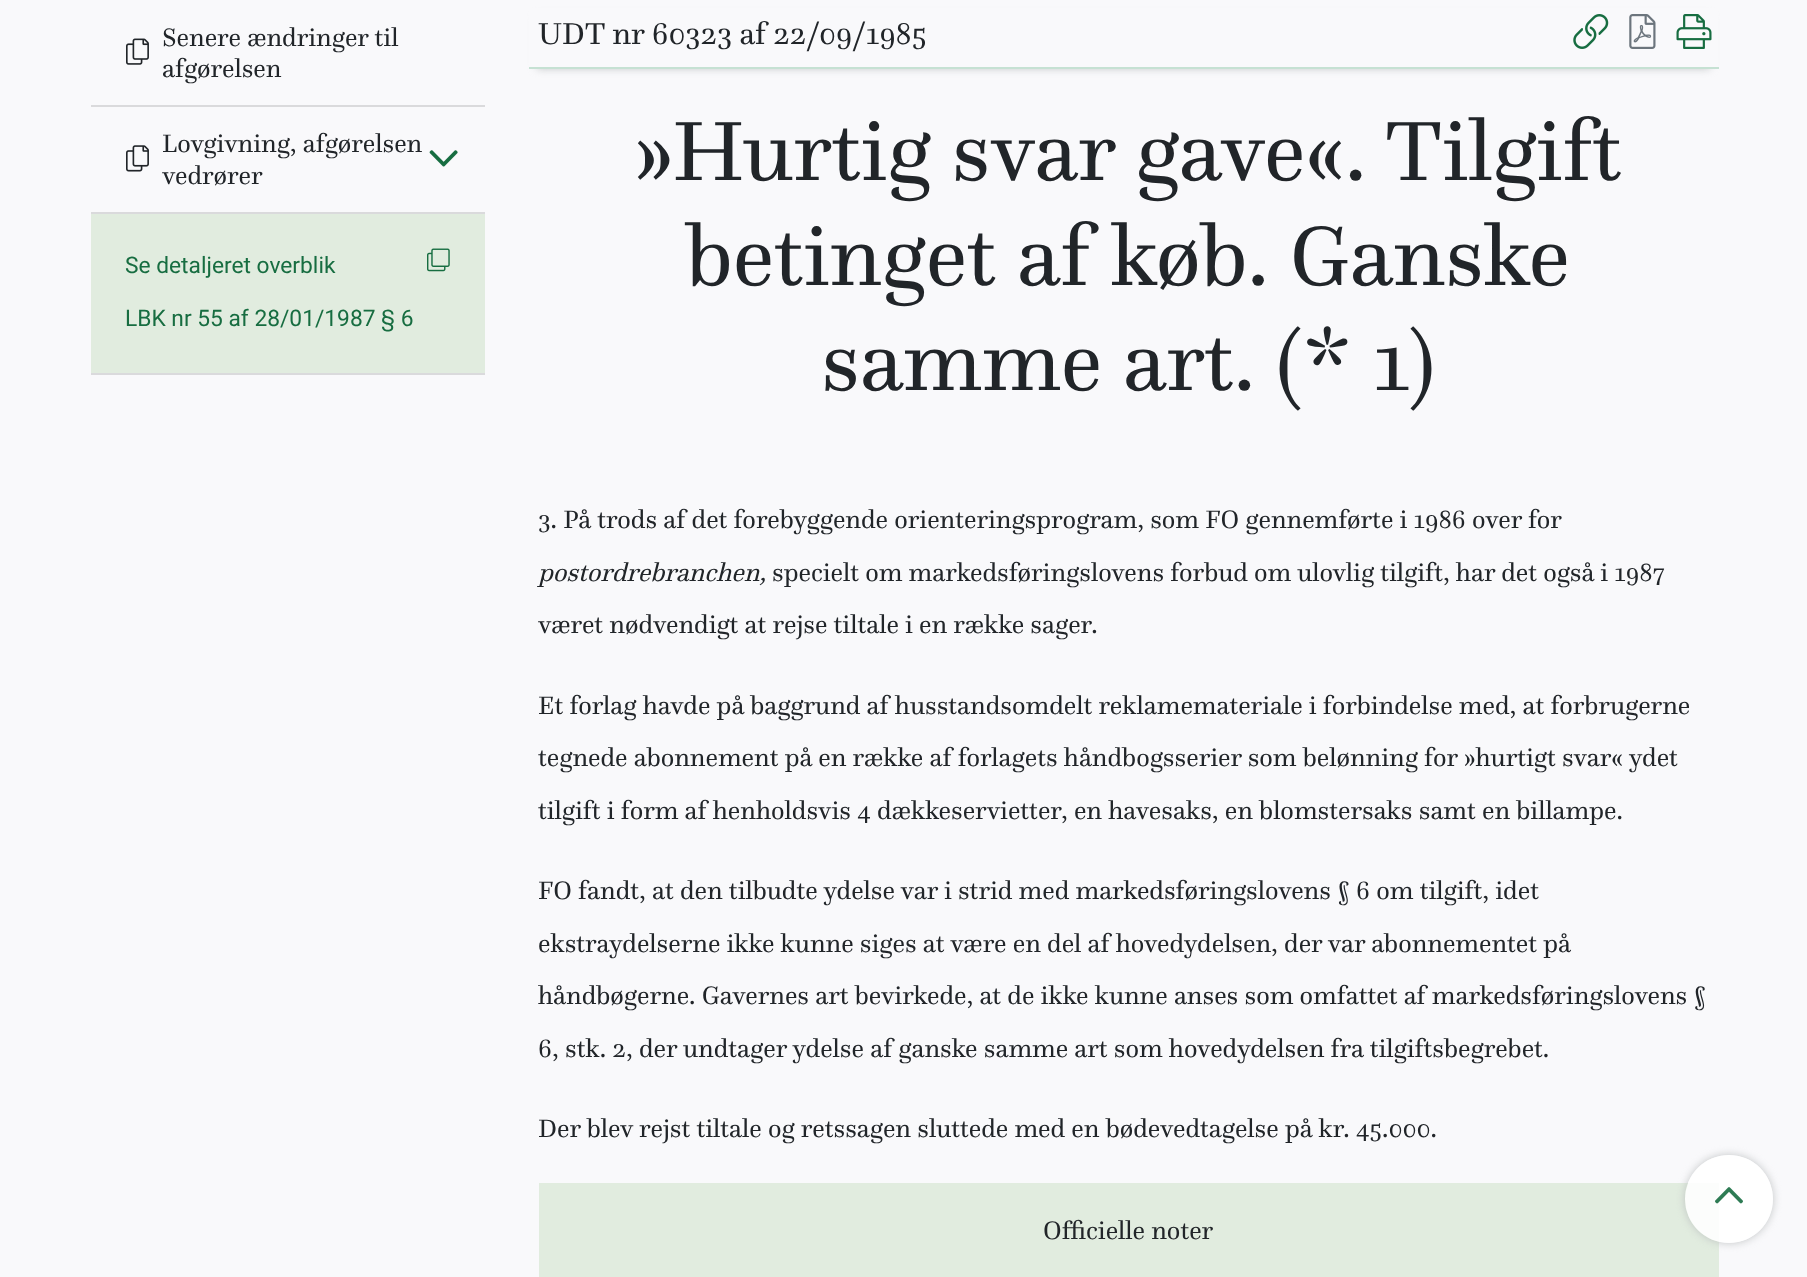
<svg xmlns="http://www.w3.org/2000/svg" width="1807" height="1277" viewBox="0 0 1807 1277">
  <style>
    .t1 { font: 26.25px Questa; fill: #212529; }
    .t2 { font: 22.75px Roboto; fill: #176d41; }
    .t3 { font: 31.5px Questa; fill: #212529; }
    .t4 { font: 87.5px Questa; fill: #212529; }
    .t5 { font: italic 26.25px Questa; fill: #212529; }
  </style>
  <defs>
    <clipPath id="clip1"><path d="M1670 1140H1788V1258H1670ZM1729 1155C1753.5 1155 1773 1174.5 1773 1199C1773 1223.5 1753.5 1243 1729 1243C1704.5 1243 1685 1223.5 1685 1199C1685 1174.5 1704.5 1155 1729 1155Z" clip-rule="evenodd"/></clipPath>
  </defs>
  <rect width="100%" height="100%" fill="#f9f9fb"/>
  <rect x="91" y="105" width="394" height="2" fill="#dadadc"/>
  <image x="126" y="38" width="23" height="27" href="images/1.png"/>
  <text x="162" y="46" class="t1">Senere ændringer til</text>
  <text x="162" y="77" class="t1">afgørelsen</text>
  <rect x="91" y="373" width="394" height="2" fill="#dadadc"/>
  <rect x="91" y="212" width="394" height="2" fill="#dadadc"/>
  <image x="126" y="145" width="23" height="27" href="images/2.png"/>
  <text x="162" y="152" class="t1">Lovgivning, afgørelsen</text>
  <text x="162" y="184" class="t1">vedrører</text>
  <image x="429" y="150" width="29" height="17" href="images/3.png"/>
  <rect x="91" y="214" width="394" height="159" fill="#e1ecdf"/>
  <text x="125" y="273" class="t2">Se detaljeret overblik</text>
  <image x="427" y="248" width="23" height="24" href="images/4.png"/>
  <text x="125" y="326" class="t2">LBK nr 55 af 28/01/1987 § 6</text>
  <rect x="537" y="16" width="1173" height="52" fill="#babebf" filter="blur(4.5px)"/>
  <rect x="529" y="8" width="1189" height="59" fill="#f9f9fb"/>
  <rect x="529" y="67" width="1190" height="2" fill="#c6e1d3"/>
  <text x="538" y="44" class="t3">UDT nr 60323 af 22/09/1985</text>
  <image x="1573" y="14" width="36" height="35" href="images/5.png"/>
  <image x="1629" y="14" width="27" height="35" href="images/6.png"/>
  <image x="1676" y="14" width="36" height="35" href="images/7.png"/>
  <text x="634" y="180" class="t4">»Hurtig svar gave«. Tilgift</text>
  <text x="686" y="285" class="t4">betinget af køb. Ganske</text>
  <text x="821" y="390" class="t4">samme art. (* 1)</text>
  <text x="538" y="528" class="t1">3. På trods af det forebyggende orienteringsprogram, som FO gennemførte i 1986 over for</text>
  <text x="538" y="581" class="t5">postordrebranchen,</text>
  <text x="772" y="581" class="t1">specielt om markedsføringslovens forbud om ulovlig tilgift, har det også i 1987</text>
  <text x="538" y="633" class="t1">været nødvendigt at rejse tiltale i en række sager.</text>
  <text x="538" y="714" class="t1">Et forlag havde på baggrund af husstandsomdelt reklamemateriale i forbindelse med, at forbrugerne</text>
  <text x="538" y="766" class="t1">tegnede abonnement på en række af forlagets håndbogsserier som belønning for »hurtigt svar« ydet</text>
  <text x="538" y="819" class="t1">tilgift i form af henholdsvis 4 dækkeservietter, en havesaks, en blomstersaks samt en billampe.</text>
  <text x="538" y="899" class="t1">FO fandt, at den tilbudte ydelse var i strid med markedsføringslovens § 6 om tilgift, idet</text>
  <text x="538" y="952" class="t1">ekstraydelserne ikke kunne siges at være en del af hovedydelsen, der var abonnementet på</text>
  <text x="538" y="1004" class="t1">håndbøgerne. Gavernes art bevirkede, at de ikke kunne anses som omfattet af markedsføringslovens §</text>
  <text x="538" y="1057" class="t1">6, stk. 2, der</text>
  <text x="683" y="1057" class="t1">undtager ydelse af ganske samme art som hovedydelsen fra tilgiftsbegrebet.</text>
  <text x="538" y="1137" class="t1">Der blev rejst tiltale og retssagen sluttede med en bødevedtagelse på kr. 45.000.</text>
  <rect x="539" y="1183" width="1180" height="94" fill="#e1ecdf"/>
  <text x="1043" y="1239" class="t1">Officielle noter</text>
  <g clip-path="url(#clip1)">
    <rect x="1685" y="1155" width="88" height="88" rx="44" fill="#babebfe6" filter="blur(4.5px)"/>
  </g>
  <circle cx="1729" cy="1199" r="44" fill="#ffffffe6"/>
  <image x="1715" y="1187" width="28" height="17" href="images/8.png"/>
</svg>
